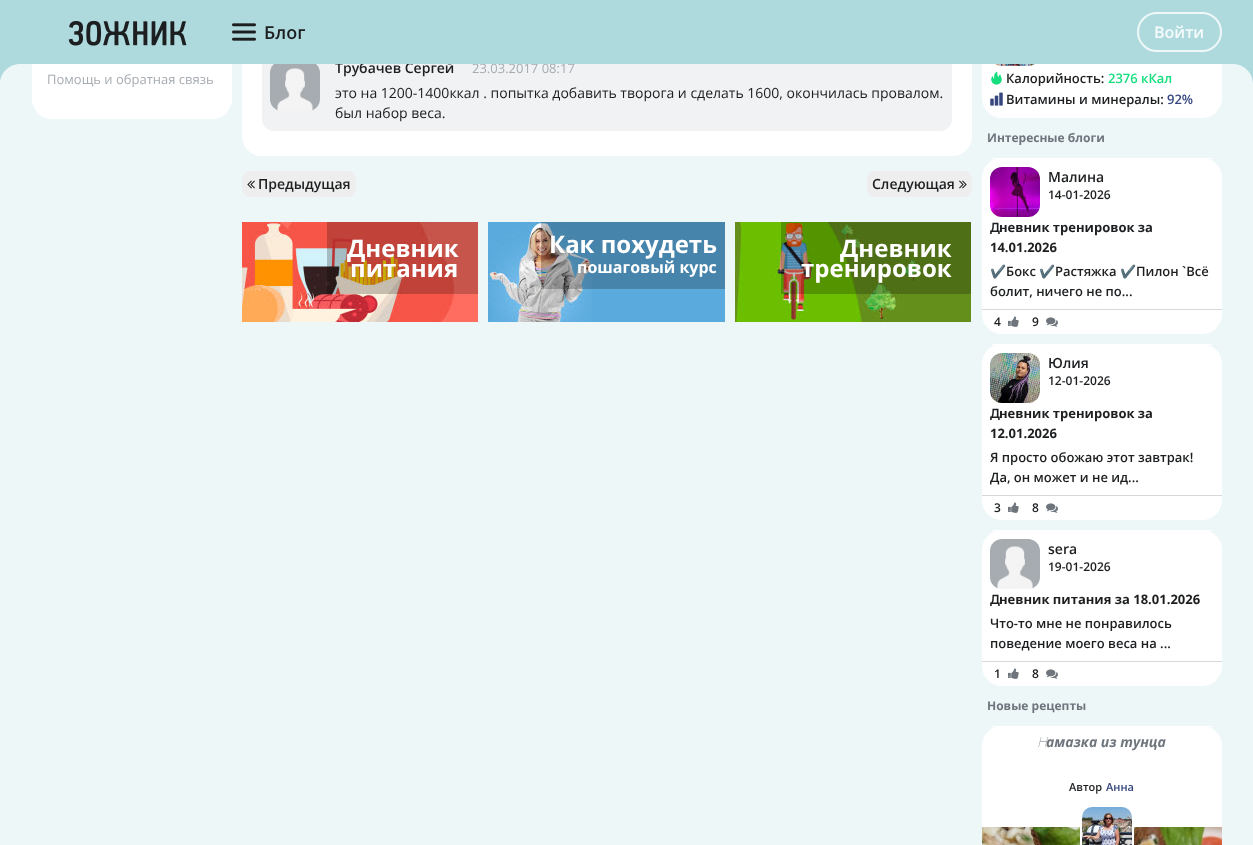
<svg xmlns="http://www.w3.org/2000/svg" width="1253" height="845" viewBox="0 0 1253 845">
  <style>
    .t1 { font: 600 14px Open Sans; fill: #1c1e20; }
    .t2 { font: 13px Open Sans; fill: #a7acb1; }
    .t3 { font: 600 18px Open Sans; fill: #1c1e20; }
    .t4 { font: 600 16px Open Sans; fill: #f7fbfc; }
    .t5 { font: 14px Open Sans; fill: #1c1e20; }
    .t6 { font: bold 24px Open Sans; fill: #fff; }
    .t7 { font: bold 16px Open Sans; fill: #fff; }
    .t8 { font: 600 13px Open Sans; fill: #1c1e20; }
    .t9 { font: 600 13px Open Sans; fill: #16de7e; }
    .t10 { font: 600 13px Open Sans; fill: #36467e; }
    .t11 { font: bold 12px Open Sans; fill: #6e757d; }
    .t12 { font: 600 12px Open Sans; fill: #1c1e20; }
    .t13 { font: 600 13px Noto Sans; fill: #1c1e20; }
    .t14 { font: bold 13px Open Sans; fill: #1c1e20; }
    .t15 { font: bold 13px Noto Color Emoji; fill: #1c1e20; }
    .t16 { font: italic 100 14px Noto Sans; fill: #6e757d; }
    .t17 { font: italic bold 14px Open Sans; fill: #6e757d; }
    .t18 { font: 600 11px Open Sans; fill: #1c1e20; }
    .t19 { font: 600 11px Open Sans; fill: #36467e; }
  </style>
  <defs>
    <clipPath id="clip1"><rect x="990" y="261" width="224" height="40"/></clipPath>
    <clipPath id="clip2"><rect x="990" y="447" width="224" height="40"/></clipPath>
  </defs>
  <rect width="100%" height="100%" fill="#eef7f8"/>
  <rect x="32" y="-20" width="200" height="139" rx="20" fill="#fff"/>
  <rect x="242" y="-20" width="730" height="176" rx="20" fill="#fff"/>
  <rect x="262" y="53" width="690" height="78" rx="12" fill="#f1f2f3"/>
  <text x="335" y="73" class="t1">Трубачев Сергей</text>
  <text x="472" y="73" class="t2">23.03.2017 08:17</text>
  <rect x="982" y="7" width="240" height="111" rx="20" fill="#fff"/>
  <rect x="0" y="0" width="1253" height="64" fill="#aedade"/>
  <image x="68" y="20" width="119" height="26" href="images/1.png"/>
  <image x="232" y="23" width="24" height="18" href="images/2.png"/>
  <text x="264" y="39" class="t3">Блог</text>
  <rect x="1138" y="13" width="83" height="38" rx="19" fill="none" stroke="#eff8f8" stroke-width="2"/>
  <text x="1154" y="38" class="t4">Войти</text>
  <path d="M20 44C9 44 0 53 0 64V84C0 73 9 64 20 64Z" fill="#aedade"/>
  <path d="M1233 44V64C1244 64 1253 73 1253 84V64C1253 53 1244 44 1233 44Z" fill="#aedade"/>
  <text x="47" y="84" class="t2">Помощь и обратная связь</text>
  <image x="270" y="64" width="50" height="47" href="images/3.png"/>
  <text x="335" y="98" class="t5">это на 1200-1400ккал . попытка добавить творога и сделать 1600, окончилась провалом.</text>
  <text x="335" y="118" class="t5">был набор веса.</text>
  <rect x="242" y="171" width="114" height="26" rx="8" fill="#eee"/>
  <image x="247" y="180" width="8" height="9" href="images/4.png"/>
  <text x="258" y="189" class="t1">Предыдущая</text>
  <rect x="867" y="171" width="105" height="26" rx="8" fill="#eee"/>
  <text x="872" y="189" class="t1">Следующая</text>
  <image x="959" y="180" width="8" height="9" href="images/5.png"/>
  <rect x="454" y="222" width="24" height="100" fill="#ff6d60"/>
  <image x="242" y="222" width="212" height="100" href="images/6.png"/>
  <rect x="327" y="222" width="151" height="72" fill="#00000038"/>
  <text x="347" y="257" class="t6">Дневник</text>
  <text x="350" y="277" class="t6">питания</text>
  <rect x="592" y="222" width="133" height="100" fill="#5aaadd"/>
  <image x="488" y="222" width="104" height="100" href="images/7.png"/>
  <rect x="541" y="222" width="184" height="67" fill="#00000038"/>
  <text x="549" y="253" class="t6">Как похудеть</text>
  <text x="577" y="273" class="t7">пошаговый курс</text>
  <rect x="922" y="222" width="49" height="100" fill="#648f1b"/>
  <image x="735" y="222" width="187" height="100" href="images/8.png"/>
  <rect x="781" y="222" width="190" height="72" fill="#00000038"/>
  <text x="840" y="257" class="t6">Дневник</text>
  <text x="801" y="277" class="t6">тренировок</text>
  <image x="995" y="64" width="40" height="2" href="images/9.png"/>
  <image x="991" y="71" width="11" height="14" href="images/10.png"/>
  <text x="1006" y="83" class="t8">Калорийность:</text>
  <text x="1108" y="83" class="t9">2376 кКал</text>
  <image x="990" y="92" width="13" height="14" href="images/11.png"/>
  <text x="1006" y="104" class="t8">Витамины и минералы:</text>
  <text x="1167" y="104" class="t10">92%</text>
  <text x="987" y="142" class="t11">Интересные блоги</text>
  <rect x="982" y="158" width="240" height="176" rx="20" fill="#fff"/>
  <rect x="992" y="158" width="220" height="1" fill="#fff"/>
  <image x="990" y="167" width="50" height="50" href="images/12.png"/>
  <text x="1048" y="182" class="t1">Малина</text>
  <text x="1048" y="199" class="t12">14-01-2026</text>
  <text x="990" y="232" class="t13">Д</text>
  <text x="999" y="232" class="t14">невник тренировок за</text>
  <text x="990" y="252" class="t14">14.01.2026</text>
  <g clip-path="url(#clip1)">
    <text x="990" y="276" class="t15">✔️</text>
  </g>
  <text x="1006" y="276" class="t8">Бокс</text>
  <text x="1039" y="276" class="t15">✔️</text>
  <text x="1055" y="276" class="t8">Растяжка</text>
  <text x="1120" y="276" class="t15">✔️</text>
  <text x="1136" y="276" class="t8">Пилон `Всё</text>
  <text x="990" y="296" class="t8">болит, ничего не по...</text>
  <rect x="982" y="309" width="240" height="1" fill="#d6d9dc"/>
  <text x="994" y="326" class="t12">4</text>
  <image x="1008" y="316" width="11" height="11" href="images/13.png"/>
  <text x="1032" y="326" class="t12">9</text>
  <image x="1046" y="317" width="12" height="10" href="images/14.png"/>
  <rect x="982" y="344" width="240" height="176" rx="20" fill="#fff"/>
  <rect x="992" y="344" width="220" height="1" fill="#fff"/>
  <image x="990" y="353" width="50" height="50" href="images/15.png"/>
  <text x="1048" y="368" class="t1">Юлия</text>
  <text x="1048" y="385" class="t12">12-01-2026</text>
  <text x="990" y="418" class="t13">Д</text>
  <text x="999" y="418" class="t14">невник тренировок за</text>
  <text x="990" y="438" class="t14">12.01.2026</text>
  <text x="990" y="462" class="t8">Я просто обожаю этот завтрак!</text>
  <g clip-path="url(#clip2)">
    <text x="990" y="482" class="t8">Да, он может и не ид...</text>
  </g>
  <rect x="982" y="495" width="240" height="1" fill="#d6d9dc"/>
  <text x="994" y="512" class="t12">3</text>
  <image x="1008" y="502" width="11" height="11" href="images/13.png"/>
  <text x="1032" y="512" class="t12">8</text>
  <image x="1046" y="503" width="12" height="10" href="images/14.png"/>
  <rect x="982" y="530" width="240" height="156" rx="20" fill="#fff"/>
  <rect x="992" y="530" width="220" height="1" fill="#fff"/>
  <image x="990" y="539" width="50" height="50" href="images/16.png"/>
  <text x="1048" y="554" class="t1">sera</text>
  <text x="1048" y="571" class="t12">19-01-2026</text>
  <text x="990" y="604" class="t13">Д</text>
  <text x="999" y="604" class="t14">невник питания за 18.01.2026</text>
  <text x="990" y="628" class="t8">Что-то мне не понравилось</text>
  <text x="990" y="648" class="t8">поведение моего веса на ...</text>
  <rect x="982" y="661" width="240" height="1" fill="#d6d9dc"/>
  <text x="994" y="678" class="t12">1</text>
  <image x="1008" y="668" width="11" height="11" href="images/13.png"/>
  <text x="1032" y="678" class="t12">8</text>
  <image x="1046" y="669" width="12" height="10" href="images/14.png"/>
  <text x="987" y="710" class="t11">Новые рецепты</text>
  <rect x="982" y="726" width="240" height="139" rx="20" fill="#fff"/>
  <rect x="992" y="726" width="220" height="1" fill="#fff"/>
  <text x="1037" y="747" class="t16">Н</text>
  <text x="1046" y="747" class="t17">амазка из тунца</text>
  <text x="1069" y="791" class="t18">Автор</text>
  <text x="1106" y="791" class="t19">Анна</text>
  <image x="982" y="827" width="240" height="18" href="images/18.png"/>
  <rect x="1081" y="806" width="52" height="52" rx="11" fill="none" stroke="#fff" stroke-width="2"/>
  <image x="1082" y="807" width="50" height="38" href="images/17.png"/>
</svg>
